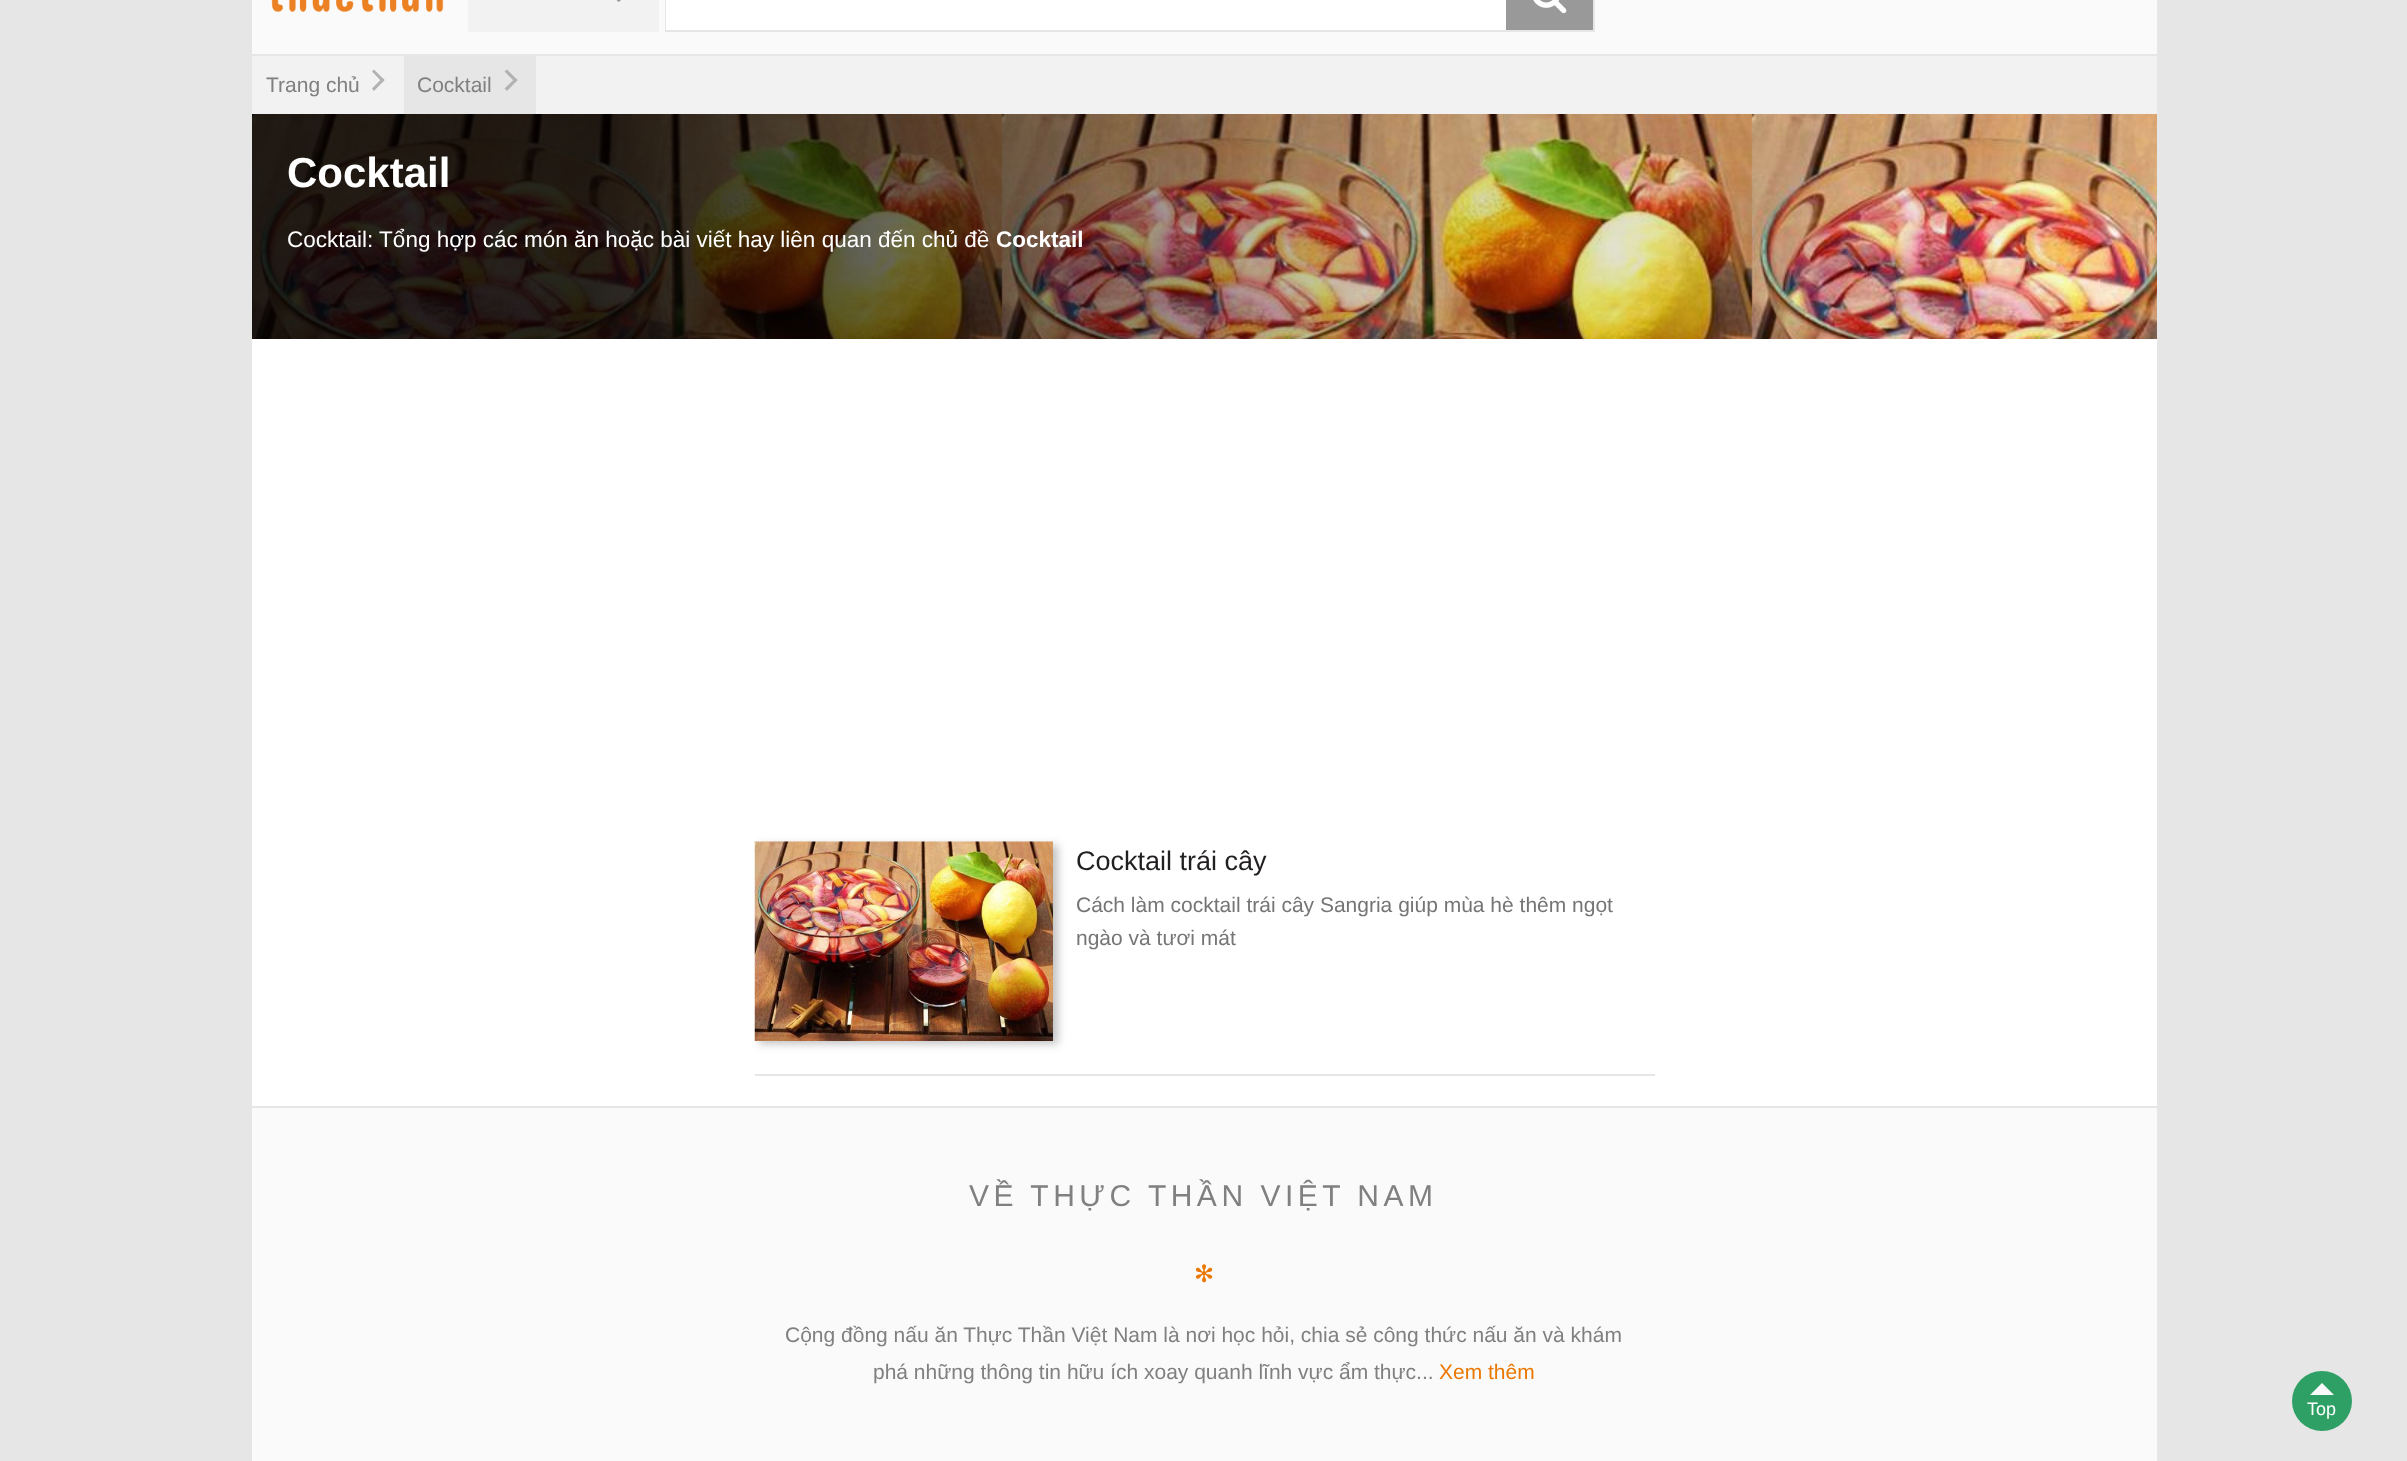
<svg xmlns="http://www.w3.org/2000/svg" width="2407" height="1461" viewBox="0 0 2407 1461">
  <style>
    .t1 { font: 21px Liberation Sans; fill: #808080; }
    .t2 { font: bold 42px Liberation Sans; fill: #fff; }
    .t3 { font: 22.5px Liberation Sans; fill: #fff; }
    .t4 { font: bold 22.5px Liberation Sans; fill: #fff; }
    .t5 { font: 27px Liberation Sans; fill: #221f1f; }
    .t6 { font: 21px Liberation Sans; fill: #757575; }
    .t7 { font: 30px Liberation Sans; letter-spacing: 4.5px; fill: #808080; }
    .t8 { font: 24px DejaVu Sans; fill: #ea7700; }
    .t9 { font: 21px Liberation Sans; fill: #ea7700; }
    .t10 { font: 18px Liberation Sans; fill: #fff; }
  </style>
  <defs>
    <clipPath id="clip1"><rect x="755" y="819" width="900" height="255"/></clipPath>
  </defs>
  <rect width="100%" height="100%" fill="#e6e6e6"/>
  <rect x="252" y="339" width="1905" height="767" fill="#fff"/>
  <rect x="252" y="0" width="1905" height="54" fill="#fafafa"/>
  <image x="271" y="0" width="173" height="12" href="images/1.png"/>
  <rect x="468" y="0" width="191" height="32" fill="#f2f2f2"/>
  <image x="616" y="0" width="5" height="2" href="images/2.png"/>
  <rect x="1491" y="0" width="15" height="30" fill="#fff"/>
  <rect x="666" y="-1" width="928" height="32" fill="none" stroke="#e6e6e6" stroke-width="2"/>
  <rect x="666" y="0" width="825" height="30" fill="#fff"/>
  <rect x="1506" y="0" width="87" height="30" fill="#999"/>
  <image x="1533" y="0" width="34" height="14" href="images/3.png"/>
  <rect x="252" y="56" width="1905" height="58" fill="#f2f2f2"/>
  <text x="266" y="92" class="t1">Trang chủ</text>
  <path d="M374 69.5L384.5 80L382.5 82.5L372 71.5Z" fill="#b2b2b2"/>
  <path d="M382.5 78L384.5 80L374 91L372 88.5Z" fill="#b2b2b2"/>
  <rect x="404" y="56" width="132" height="58" fill="#e6e6e6"/>
  <text x="417" y="92" class="t1">Cocktail</text>
  <path d="M507 69.5L517.5 80L515.5 82.5L504.5 71.5Z" fill="#b2b2b2"/>
  <path d="M515.5 78L517.5 80L507 91L504.5 88.5Z" fill="#b2b2b2"/>
  <image x="252" y="114" width="1905" height="225" href="images/4.png"/>
  <text x="287" y="187" class="t2">Cocktail</text>
  <text x="287" y="247" class="t3">Cocktail: Tổng hợp các món ăn hoặc bài viết hay liên quan đến chủ đề</text>
  <text x="996" y="247" class="t4">Cocktail</text>
  <rect x="755" y="1074" width="900" height="2" fill="#e6e6e6"/>
  <g clip-path="url(#clip1)">
    <rect x="759" y="845" width="299" height="199" fill="#c2c2c2" filter="blur(4px)"/>
  </g>
  <image x="754" y="841" width="299" height="200" href="images/5.png"/>
  <text x="1076" y="870" class="t5">Cocktail trái cây</text>
  <text x="1076" y="912" class="t6">Cách làm cocktail trái cây Sangria giúp mùa hè thêm ngọt</text>
  <text x="1076" y="945" class="t6">ngào và tươi mát</text>
  <rect x="252" y="1108" width="1905" height="353" fill="#fafafa"/>
  <text x="969" y="1206" class="t7">VỀ THỰC THẦN VIỆT NAM</text>
  <text x="1194" y="1282" class="t8">✻</text>
  <text x="785" y="1342" class="t1">Cộng đồng nấu ăn Thực Thần Việt Nam là nơi học hỏi, chia sẻ công thức nấu ăn và khám</text>
  <text x="873" y="1379" class="t1">phá những thông tin hữu ích xoay quanh lĩnh vực ẩm thực...</text>
  <text x="1439" y="1379" class="t9">Xem thêm</text>
  <circle cx="2322" cy="1401" r="30" fill="#2ea065"/>
  <path d="M2334 1395H2310L2322 1383Z" fill="#fafafa"/>
  <text x="2307" y="1415" class="t10">Top</text>
</svg>
